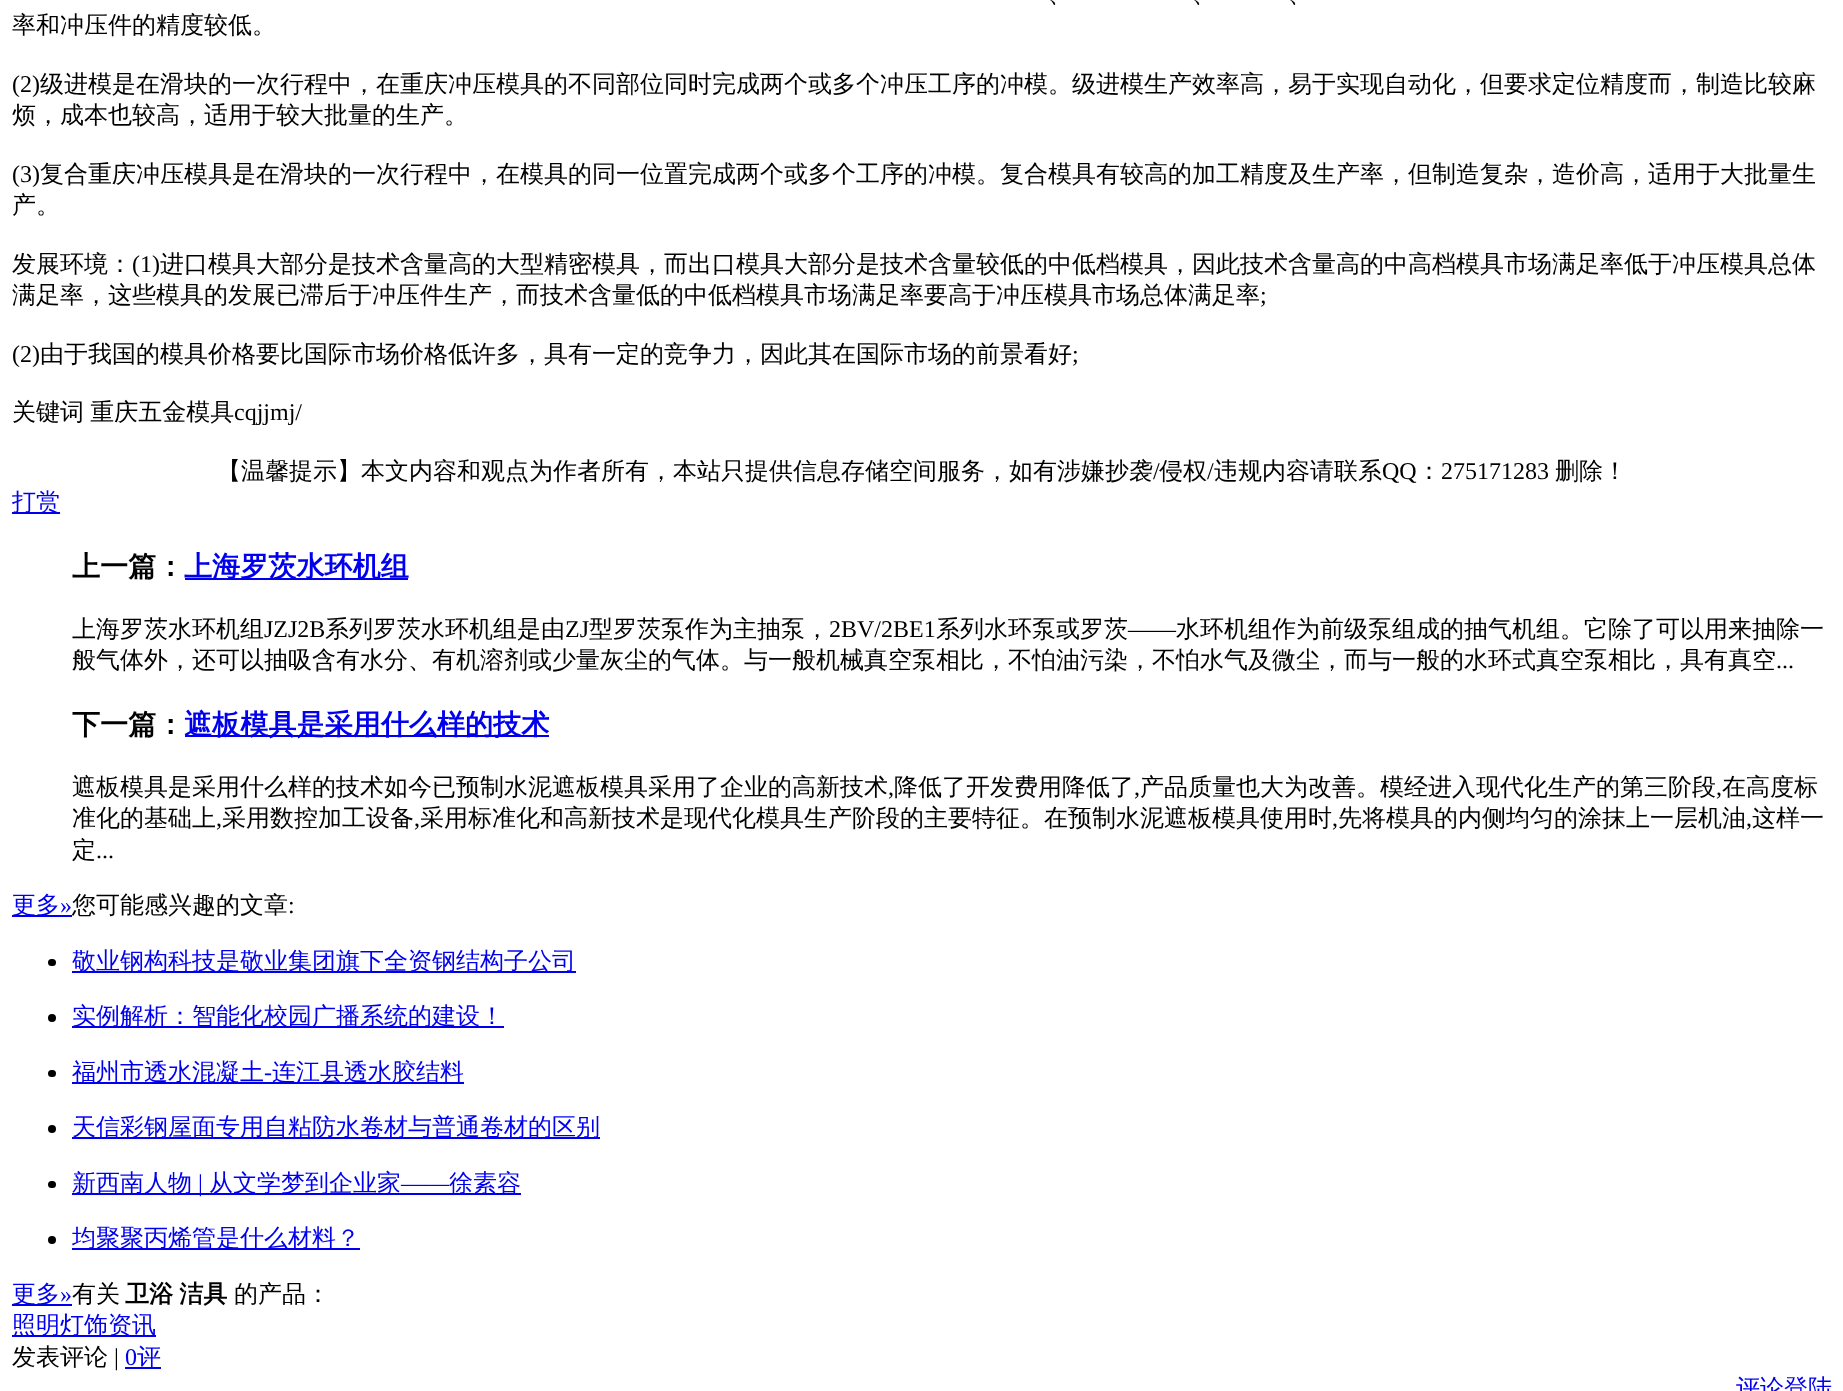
<svg xmlns="http://www.w3.org/2000/svg" width="1843" height="1391" viewBox="0 0 1843 1391">
  <style>
    .t1 { font: 500 24px WenQuanYi Zen Hei; fill: #000; }
    .t2 { font: 24px Liberation Serif; fill: #000; }
    .t3 { font: 500 24px WenQuanYi Zen Hei; fill: #00e; }
    .t4 { font: bold 28.1px WenQuanYi Zen Hei; fill: #000; }
    .t5 { font: bold 28.1px WenQuanYi Zen Hei; fill: #00e; }
    .t6 { font: 24px Liberation Serif; fill: #00e; }
    .t7 { font: bold 24px WenQuanYi Zen Hei; fill: #000; }
  </style>
  <rect width="100%" height="100%" fill="#fff"/>
  <text x="1048" y="2" class="t1">、</text>
  <text x="1192" y="2" class="t1">、</text>
  <text x="1288" y="2" class="t1">、</text>
  <text x="12" y="33" class="t1">率和冲压件的精度较低。</text>
  <text x="12" y="92" class="t2">(2)</text>
  <text x="40" y="92" class="t1">级进模是在滑块的一次行程中，在重庆冲压模具的不同部位同时完成两个或多个冲压工序的冲模。级进模生产效率高，易于实现自动化，但要求定位精度而，制造比较麻</text>
  <text x="12" y="123" class="t1">烦，成本也较高，适用于较大批量的生产。</text>
  <text x="12" y="182" class="t2">(3)</text>
  <text x="40" y="182" class="t1">复合重庆冲压模具是在滑块的一次行程中，在模具的同一位置完成两个或多个工序的冲模。复合模具有较高的加工精度及生产率，但制造复杂，造价高，适用于大批量生</text>
  <text x="12" y="213" class="t1">产。</text>
  <text x="12" y="272" class="t1">发展环境：</text>
  <text x="132" y="272" class="t2">(1)</text>
  <text x="160" y="272" class="t1">进口模具大部分是技术含量高的大型精密模具，而出口模具大部分是技术含量较低的中低档模具，因此技术含量高的中高档模具市场满足率低于冲压模具总体</text>
  <text x="12" y="303" class="t1">满足率，这些模具的发展已滞后于冲压件生产，而技术含量低的中低档模具市场满足率要高于冲压模具市场总体满足率</text>
  <text x="1260" y="303" class="t2">;</text>
  <text x="12" y="362" class="t2">(2)</text>
  <text x="40" y="362" class="t1">由于我国的模具价格要比国际市场价格低许多，具有一定的竞争力，因此其在国际市场的前景看好</text>
  <text x="1072" y="362" class="t2">;</text>
  <text x="12" y="420" word-spacing="-1" class="t1">关键词 重庆五金模具</text>
  <text x="234" y="420" class="t2">cqjjmj/</text>
  <text x="217" y="479" class="t1">【温馨提示】本文内容和观点为作者所有，本站只提供信息存储空间服务，如有涉嫌抄袭</text>
  <text x="1153" y="479" class="t2">/</text>
  <text x="1159" y="479" class="t1">侵权</text>
  <text x="1207" y="479" class="t2">/</text>
  <text x="1214" y="479" class="t1">违规内容请联系</text>
  <text x="1382" y="479" class="t2">QQ</text>
  <text x="1417" y="479" class="t1">：</text>
  <text x="1441" y="479" class="t2">275171283</text>
  <text x="1555" y="479" class="t1">删除！</text>
  <rect x="12" y="512" width="48" height="2" fill="#00e"/>
  <text x="12" y="510" class="t3">打赏</text>
  <text x="72" y="576" class="t4">上一篇：</text>
  <rect x="185" y="578" width="223" height="2" fill="#00e"/>
  <text x="184" y="576" class="t5">上海罗茨水环机组</text>
  <text x="72" y="637" class="t1">上海罗茨水环机组</text>
  <text x="264" y="637" class="t2">JZJ2B</text>
  <text x="325" y="637" class="t1">系列罗茨水环机组是由</text>
  <text x="565" y="637" class="t2">ZJ</text>
  <text x="589" y="637" class="t1">型罗茨泵作为主抽泵，</text>
  <text x="829" y="637" class="t2">2BV/2BE1</text>
  <text x="936" y="637" class="t1">系列水环泵或罗茨</text>
  <text x="1128" y="637" class="t2">——</text>
  <text x="1176" y="637" class="t1">水环机组作为前级泵组成的抽气机组。它除了可以用来抽除一</text>
  <text x="72" y="668" class="t1">般气体外，还可以抽吸含有水分、有机溶剂或少量灰尘的气体。与一般机械真空泵相比，不怕油污染，不怕水气及微尘，而与一般的水环式真空泵相比，具有真空</text>
  <text x="1776" y="668" class="t2">...</text>
  <text x="72" y="734" class="t4">下一篇：</text>
  <rect x="185" y="735" width="364" height="2" fill="#00e"/>
  <text x="184" y="734" class="t5">遮板模具是采用什么样的技术</text>
  <text x="72" y="795" class="t1">遮板模具是采用什么样的技术如今已预制水泥遮板模具采用了企业的高新技术</text>
  <text x="888" y="795" class="t2">,</text>
  <text x="894" y="795" class="t1">降低了开发费用降低了</text>
  <text x="1134" y="795" class="t2">,</text>
  <text x="1140" y="795" class="t1">产品质量也大为改善。模经进入现代化生产的第三阶段</text>
  <text x="1716" y="795" class="t2">,</text>
  <text x="1722" y="795" class="t1">在高度标</text>
  <text x="72" y="826" class="t1">准化的基础上</text>
  <text x="216" y="826" class="t2">,</text>
  <text x="222" y="826" class="t1">采用数控加工设备</text>
  <text x="414" y="826" class="t2">,</text>
  <text x="420" y="826" class="t1">采用标准化和高新技术是现代化模具生产阶段的主要特征。在预制水泥遮板模具使用时</text>
  <text x="1332" y="826" class="t2">,</text>
  <text x="1338" y="826" class="t1">先将模具的内侧均匀的涂抹上一层机油</text>
  <text x="1746" y="826" class="t2">,</text>
  <text x="1752" y="826" class="t1">这样一</text>
  <text x="72" y="858" class="t1">定</text>
  <text x="96" y="858" class="t2">...</text>
  <rect x="12" y="915" width="60" height="2" fill="#00e"/>
  <text x="12" y="913" class="t3">更多</text>
  <text x="60" y="913" class="t6">»</text>
  <text x="72" y="913" class="t1">您可能感兴趣的文章</text>
  <text x="288" y="913" class="t2">:</text>
  <rect x="48" y="959" width="8" height="7" rx="3.5" fill="#000"/>
  <rect x="72" y="971" width="504" height="2" fill="#00e"/>
  <text x="72" y="969" class="t3">敬业钢构科技是敬业集团旗下全资钢结构子公司</text>
  <circle cx="52" cy="1018" r="4" fill="#000"/>
  <rect x="72" y="1026" width="432" height="2" fill="#00e"/>
  <text x="72" y="1024" class="t3">实例解析：智能化校园广播系统的建设！</text>
  <rect x="48" y="1070" width="8" height="7" rx="3.5" fill="#000"/>
  <rect x="72" y="1082" width="392" height="2" fill="#00e"/>
  <text x="72" y="1080" class="t3">福州市透水混凝土</text>
  <text x="264" y="1080" class="t6">-</text>
  <text x="272" y="1080" class="t3">连江县透水胶结料</text>
  <circle cx="52" cy="1129" r="4" fill="#000"/>
  <rect x="72" y="1137" width="528" height="2" fill="#00e"/>
  <text x="72" y="1135" class="t3">天信彩钢屋面专用自粘防水卷材与普通卷材的区别</text>
  <rect x="48" y="1181" width="8" height="7" rx="3.5" fill="#000"/>
  <rect x="72" y="1193" width="449" height="2" fill="#00e"/>
  <text x="72" y="1191" class="t3">新西南人物</text>
  <text x="198" y="1191" class="t6">|</text>
  <text x="209" y="1191" class="t3">从文学梦到企业家</text>
  <text x="401" y="1191" class="t6">——</text>
  <text x="449" y="1191" class="t3">徐素容</text>
  <circle cx="52" cy="1240" r="4" fill="#000"/>
  <rect x="72" y="1248" width="288" height="2" fill="#00e"/>
  <text x="72" y="1246" class="t3">均聚聚丙烯管是什么材料？</text>
  <rect x="12" y="1304" width="60" height="2" fill="#00e"/>
  <text x="12" y="1302" class="t3">更多</text>
  <text x="60" y="1302" class="t6">»</text>
  <text x="72" y="1302" class="t1">有关</text>
  <text x="125" y="1302" word-spacing="-1" class="t7">卫浴 洁具</text>
  <text x="234" y="1302" class="t1">的产品：</text>
  <rect x="12" y="1335" width="144" height="2" fill="#00e"/>
  <text x="12" y="1333" class="t3">照明灯饰资讯</text>
  <text x="12" y="1365" class="t1">发表评论</text>
  <text x="114" y="1365" class="t2">|</text>
  <text x="125" y="1365" class="t6">0</text>
  <rect x="125" y="1367" width="36" height="2" fill="#00e"/>
  <text x="137" y="1365" class="t3">评</text>
  <text x="1736" y="1396" class="t3">评论登陆</text>
</svg>
